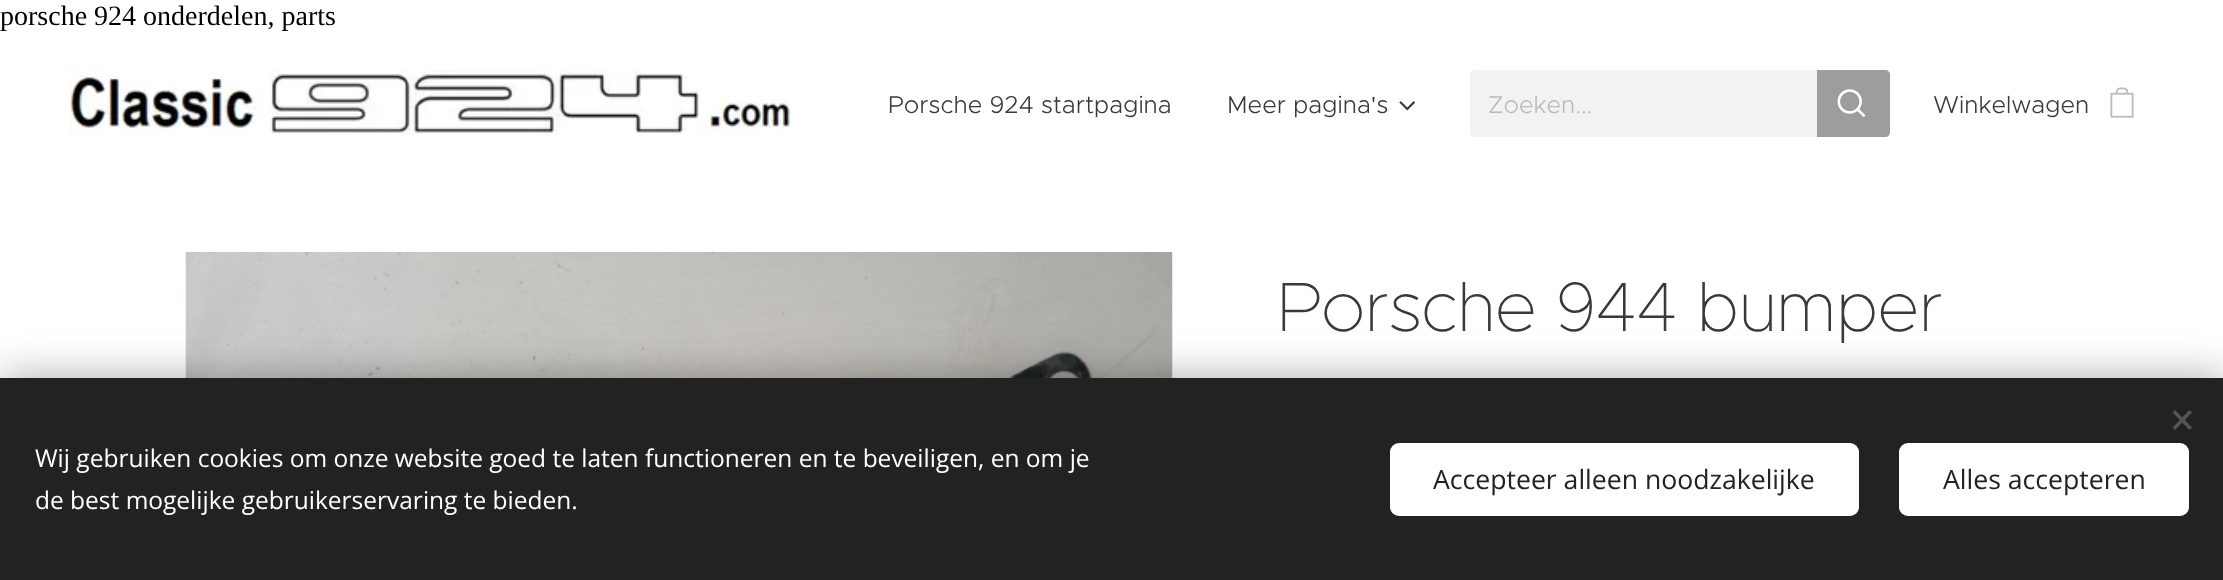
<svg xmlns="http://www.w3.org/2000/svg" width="2223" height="580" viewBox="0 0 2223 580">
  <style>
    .t1 { font: 28px Liberation Serif; fill: #000; }
    .t2 { font: 300 24.5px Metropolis; fill: #393939; }
    .t3 { font: 300 24.5px Metropolis; fill: #bababa; }
    .t4 { font: 100 70px Metropolis; letter-spacing: -0.7px; fill: #393939; }
    .t5 { font: 24.5px Open Sans; fill: #fff; }
    .t6 { font: 26.6px Open Sans; fill: #222; }
  </style>
  <rect width="100%" height="100%" fill="#fff"/>
  <text x="0" y="25" class="t1">porsche 924 onderdelen, parts</text>
  <image x="70" y="69" width="721" height="66" href="images/1.png"/>
  <text x="888" y="113" class="t2">Porsche 924 startpagina</text>
  <text x="1227" y="113" class="t2">Meer pagina's</text>
  <image x="1399" y="101" width="16" height="10" href="images/2.png"/>
  <path d="M1475 70H1817V137H1475C1472 137 1470 135 1470 132V75C1470 72 1472 70 1475 70Z" fill="#f2f2f2"/>
  <text x="1488" y="113" class="t3">Zoeken...</text>
  <path d="M1817 70H1885C1888 70 1890 72 1890 75V132C1890 135 1888 137 1885 137H1817Z" fill="#9d9d9d"/>
  <image x="1837" y="89" width="29" height="29" href="images/3.png"/>
  <text x="1933" y="113" class="t2">Winkelwagen</text>
  <image x="2110" y="87" width="24" height="31" href="images/4.png"/>
  <image x="185" y="252" width="988" height="126" href="images/5.png"/>
  <text x="1277" y="331" class="t4">Porsche 944 bumper</text>
  <rect x="0" y="378" width="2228" height="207" fill="#00000054" filter="blur(22px)"/>
  <rect x="0" y="378" width="2223" height="202" fill="#222"/>
  <path d="M2172.5 427.5L2189.5 410L2192 412.5L2175 430Z" fill="#555"/>
  <path d="M2175 410L2192 427.5L2189.5 430L2172.5 412.5Z" fill="#555"/>
  <text x="35" y="467" class="t5">Wij gebruiken cookies om onze website goed te laten functioneren en te beveiligen, en om je</text>
  <text x="35" y="509" class="t5">de best mogelijke gebruikerservaring te bieden.</text>
  <rect x="1390" y="443" width="469" height="73" rx="9" fill="#fff"/>
  <text x="1433" y="489" class="t6">Accepteer alleen noodzakelijke</text>
  <rect x="1899" y="443" width="290" height="73" rx="9" fill="#fff"/>
  <text x="1943" y="489" class="t6">Alles accepteren</text>
</svg>
